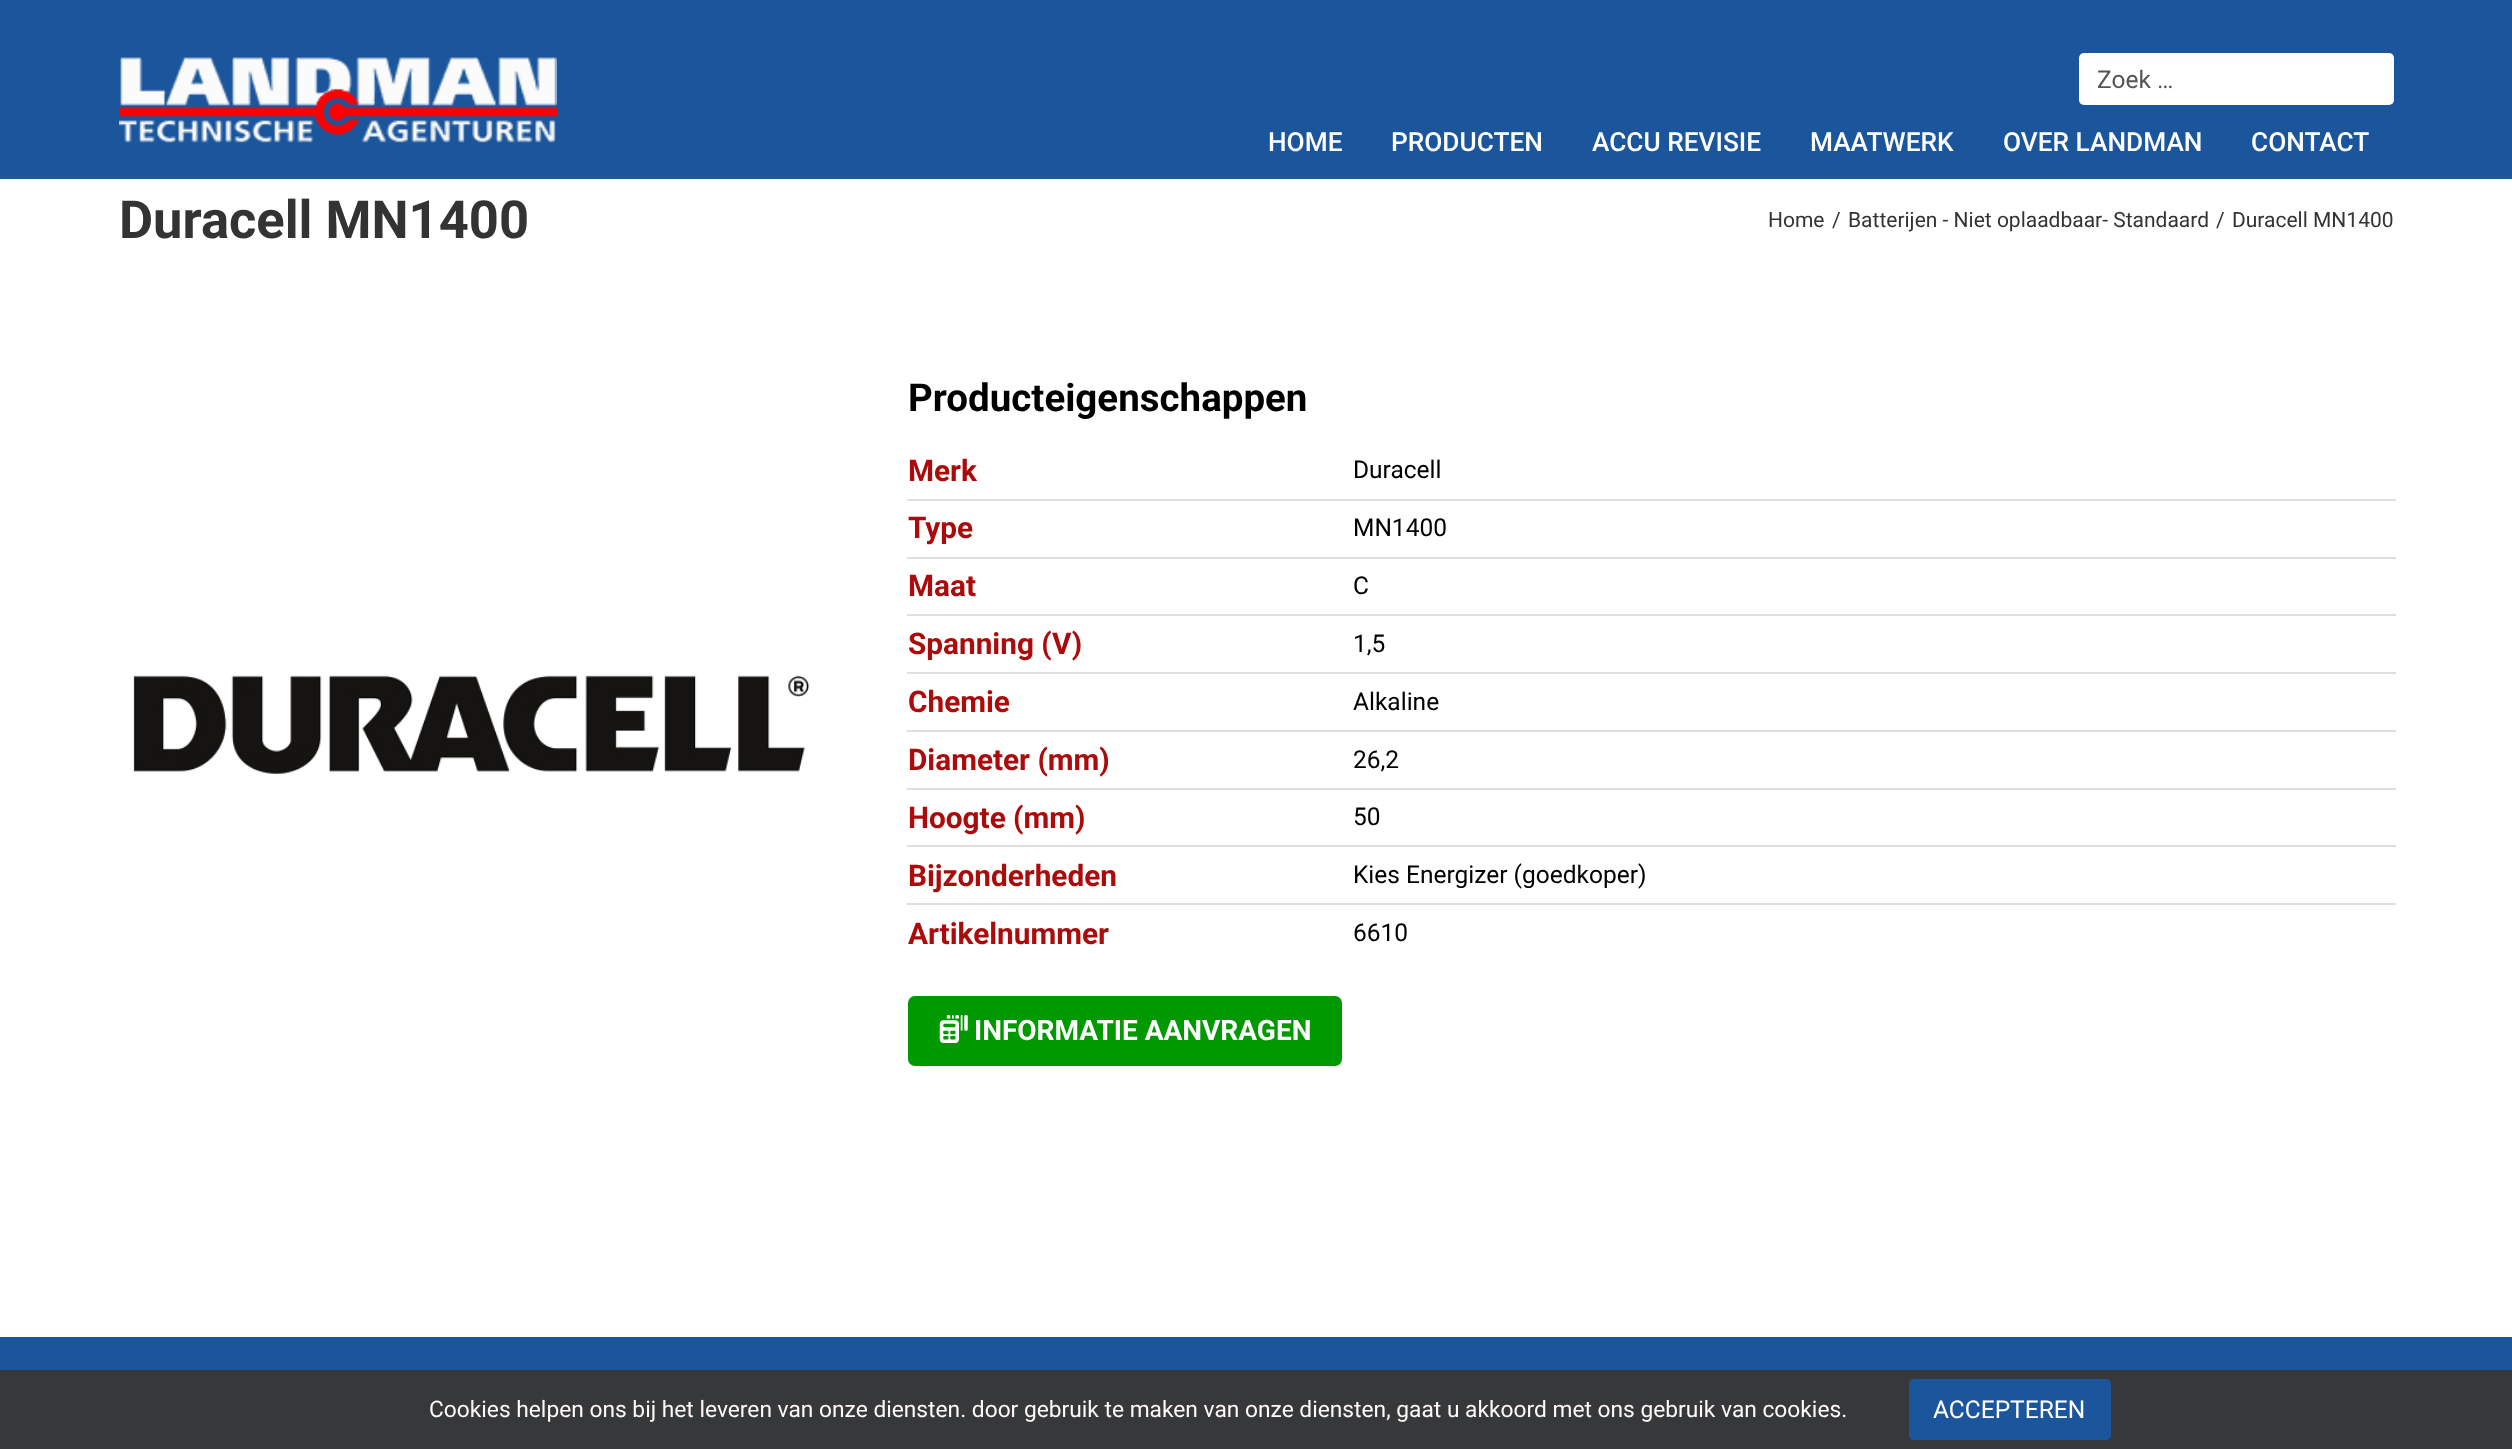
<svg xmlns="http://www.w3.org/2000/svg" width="2512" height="1449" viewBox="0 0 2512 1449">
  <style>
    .t1 { font: 24.5px Roboto; fill: #555; }
    .t2 { font: 500 26.25px Roboto; fill: #fff; }
    .t3 { font: bold 52.5px Roboto; fill: #333; }
    .t4 { font: 21px Roboto; fill: #333; }
    .t5 { font: bold 38.5px Roboto; fill: #000; }
    .t6 { font: bold 29.75px Roboto; fill: #ab0b0b; }
    .t7 { font: 24.5px Roboto; fill: #000; }
    .t8 { font: bold 28px Roboto; fill: #fff; }
    .t9 { font: 22.75px Roboto; fill: #fff9f9; }
    .t10 { font: 24.5px Roboto; fill: #fff; }
  </style>
  <rect width="100%" height="100%" fill="#fff"/>
  <rect x="0" y="0" width="2512" height="179" fill="#1b569c"/>
  <image x="119" y="57" width="438" height="86" href="images/1.png"/>
  <rect x="2079" y="53" width="315" height="52" rx="5" fill="#fff"/>
  <text x="2097" y="88" class="t1">Zoek …</text>
  <text x="1268" y="151" class="t2">HOME</text>
  <text x="1391" y="151" class="t2">PRODUCTEN</text>
  <text x="1592" y="151" class="t2">ACCU REVISIE</text>
  <text x="1810" y="151" class="t2">MAATWERK</text>
  <text x="2003" y="151" class="t2">OVER LANDMAN</text>
  <text x="2251" y="151" class="t2">CONTACT</text>
  <text x="119" y="238" class="t3">Duracell MN1400</text>
  <text x="1768" y="227" class="t4">Home</text>
  <text x="1832" y="227" class="t4">/</text>
  <text x="1848" y="227" class="t4">Batterijen - Niet oplaadbaar- Standaard</text>
  <text x="2216" y="227" class="t4">/</text>
  <text x="2232" y="227" class="t4">Duracell MN1400</text>
  <image x="133" y="675" width="677" height="100" href="images/2.png"/>
  <text x="908" y="411" class="t5">Producteigenschappen</text>
  <rect x="907" y="499" width="1489" height="2" fill="#e0dede"/>
  <text x="908" y="481" class="t6">Merk</text>
  <text x="1353" y="478" class="t7">Duracell</text>
  <rect x="907" y="557" width="1489" height="2" fill="#e0dede"/>
  <text x="908" y="538" class="t6">Type</text>
  <text x="1353" y="536" class="t7">MN1400</text>
  <rect x="907" y="614" width="1489" height="2" fill="#e0dede"/>
  <text x="908" y="596" class="t6">Maat</text>
  <text x="1353" y="594" class="t7">C</text>
  <rect x="907" y="672" width="1489" height="2" fill="#e0dede"/>
  <text x="908" y="654" class="t6">Spanning (V)</text>
  <text x="1353" y="652" class="t7">1,5</text>
  <rect x="907" y="730" width="1489" height="2" fill="#e0dede"/>
  <text x="908" y="712" class="t6">Chemie</text>
  <text x="1353" y="710" class="t7">Alkaline</text>
  <rect x="907" y="788" width="1489" height="2" fill="#e0dede"/>
  <text x="908" y="770" class="t6">Diameter (mm)</text>
  <text x="1353" y="768" class="t7">26,2</text>
  <rect x="907" y="845" width="1489" height="2" fill="#e0dede"/>
  <text x="908" y="828" class="t6">Hoogte (mm)</text>
  <text x="1353" y="825" class="t7">50</text>
  <rect x="907" y="903" width="1489" height="2" fill="#e0dede"/>
  <text x="908" y="886" class="t6">Bijzonderheden</text>
  <text x="1353" y="883" class="t7">Kies Energizer (goedkoper)</text>
  <text x="908" y="944" class="t6">Artikelnummer</text>
  <text x="1353" y="941" class="t7">6610</text>
  <rect x="908" y="996" width="434" height="70" rx="7" fill="#090"/>
  <image x="939" y="1015" width="29" height="28" href="images/3.png"/>
  <text x="974" y="1040" class="t8">INFORMATIE AANVRAGEN</text>
  <rect x="0" y="1337" width="2512" height="33" fill="#1b569c"/>
  <rect x="0" y="1370" width="2512" height="79" fill="#363839"/>
  <text x="429" y="1417" class="t9">Cookies helpen ons bij het leveren van onze diensten. door gebruik te maken van onze diensten, gaat u akkoord met ons gebruik van cookies.</text>
  <rect x="1909" y="1379" width="202" height="61" rx="5" fill="#1b569c"/>
  <text x="1933" y="1418" class="t10">ACCEPTEREN</text>
</svg>
